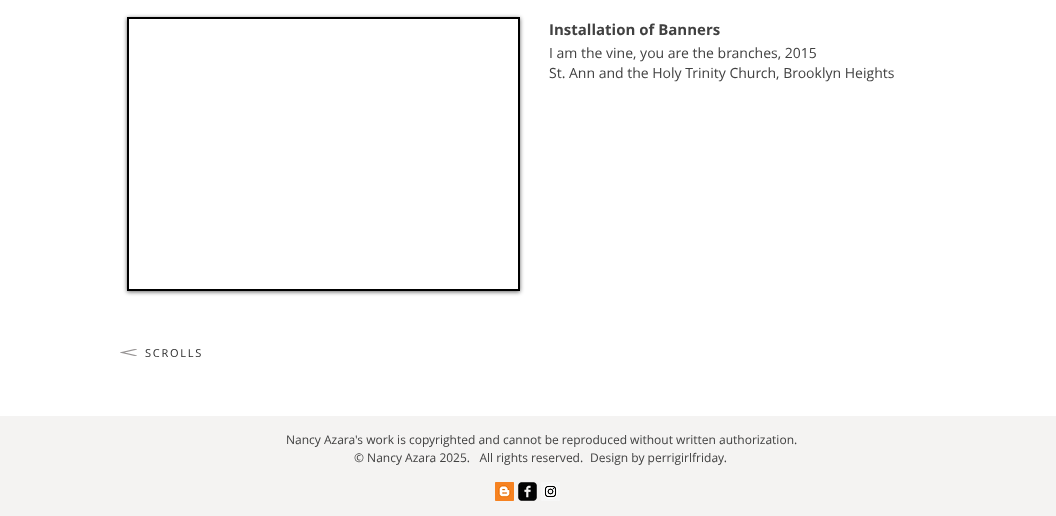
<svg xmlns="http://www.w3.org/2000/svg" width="1056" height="516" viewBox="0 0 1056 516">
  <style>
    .t1 { font: bold 15px Open Sans; fill: #414141; }
    .t2 { font: 14px Open Sans; fill: #414141; }
    .t3 { font: 11px Open Sans; letter-spacing: 1.75px; fill: #292929; }
    .t4 { font: 12px Open Sans; fill: #414141; }
  </style>
  <defs>
    <clipPath id="clip1"><path d="M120 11H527V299H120ZM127 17H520V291H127Z" clip-rule="evenodd"/></clipPath>
  </defs>
  <rect width="100%" height="100%" fill="#fff"/>
  <g clip-path="url(#clip1)">
    <rect x="127" y="18" width="393" height="274" fill="#00000099" filter="blur(2px)"/>
  </g>
  <rect x="128" y="18" width="391" height="272" fill="none" stroke="#000" stroke-width="2"/>
  <text x="549" y="35" class="t1">Installation of Banners</text>
  <text x="549" y="58" class="t2">I am the vine, you are the branches, 2015</text>
  <text x="549" y="78" class="t2">St. Ann and the Holy Trinity Church, Brooklyn Heights</text>
  <image x="120" y="349" width="17" height="7" href="images/1.png"/>
  <text x="145" y="357" class="t3">SCROLLS</text>
  <rect x="0" y="416" width="1056" height="100" fill="#f4f3f2"/>
  <text x="286" y="444" class="t4">Nancy Azara's work is copyrighted and cannot be reproduced without written authorization.</text>
  <text x="354" y="462" class="t4" xml:space="preserve">© Nancy Azara 2025.   All rights reserved.</text>
  <text x="590" y="462" class="t4">Design by perrigirlfriday.</text>
  <image x="495" y="482" width="19" height="19" href="images/2.png"/>
  <image x="518" y="482" width="19" height="19" href="images/3.png"/>
  <image x="541" y="482" width="19" height="19" href="images/4.png"/>
</svg>
